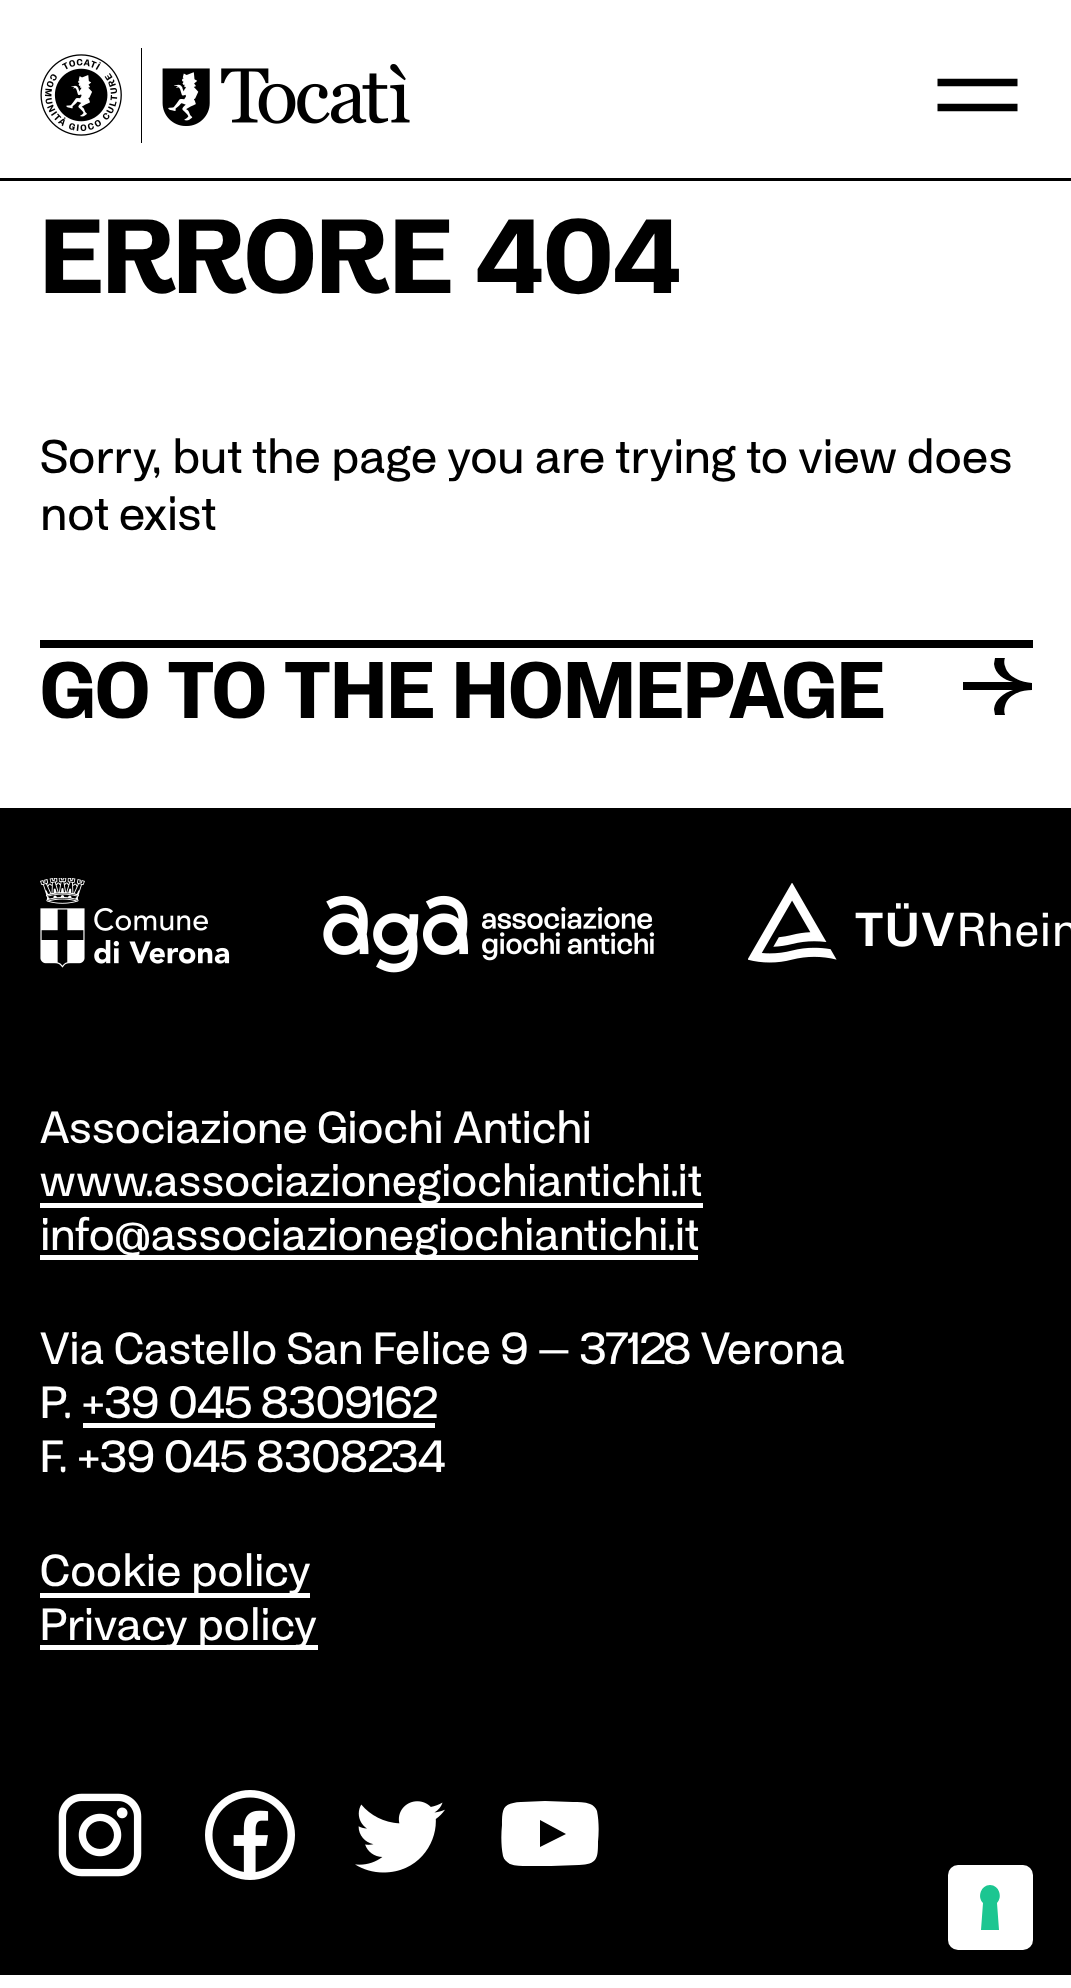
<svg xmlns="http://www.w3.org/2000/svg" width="1071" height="1988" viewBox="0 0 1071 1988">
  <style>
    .t1 { font: bold 105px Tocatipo; fill: #000; }
    .t2 { font: 47.5px Tocatipo; fill: #000; }
    .t3 { font: bold 80px Tocatipo; fill: #000; }
    .t4 { font: 45px Tocatipo; fill: #fff; }
  </style>
  <defs>
    <clipPath id="clip1"><rect x="963" y="653" width="70" height="70"/></clipPath>
  </defs>
  <rect width="100%" height="100%" fill="#fff"/>
  <image x="40" y="48" width="370" height="95" href="images/1.png"/>
  <path d="M937.5 82.5H1017.5" fill="none" stroke="#000" stroke-width="7.5"/>
  <path d="M937.5 107.5H1017.5" fill="none" stroke="#000" stroke-width="7.5"/>
  <rect x="0" y="178" width="1071" height="3" fill="#000"/>
  <text x="40" y="293" class="t1">ERRORE 404</text>
  <text x="40" y="473" class="t2">Sorry, but the page you are trying to view does</text>
  <text x="40" y="530" class="t2">not exist</text>
  <rect x="40" y="640" width="993" height="8" fill="#000"/>
  <text x="40" y="718" class="t3">GO TO THE HOMEPAGE</text>
  <g clip-path="url(#clip1)">
    <path d="M995 715H1005C1004 712 1004 709 1005 706C1008 694 1022 690 1032 690V683C1022 682 1008 678 1005 666C1004 664 1004 660 1005 658H995L994 664C995 674 1004 680 1013 682H962V690H1013C1004 693 995 699 994 709Z" fill="#000"/>
  </g>
  <rect x="0" y="808" width="1071" height="1167" fill="#000"/>
  <image x="40" y="878" width="190" height="90" href="images/2.png"/>
  <image x="323" y="895" width="332" height="78" href="images/3.png"/>
  <image x="748" y="883" width="323" height="80" href="images/4.png"/>
  <text x="40" y="1143" class="t4">Associazione Giochi Antichi</text>
  <rect x="40" y="1203" width="663" height="5" fill="#fff"/>
  <text x="40" y="1196" class="t4">www.associazionegiochiantichi.it</text>
  <rect x="40" y="1255" width="658" height="5" fill="#fff"/>
  <text x="40" y="1250" class="t4">info@associazionegiochiantichi.it</text>
  <text x="40" y="1364" class="t4">Via Castello San Felice 9 – 37128 Verona</text>
  <text x="40" y="1418" class="t4">P. +39 045 8309162</text>
  <rect x="83" y="1423" width="352" height="5" fill="#fff"/>
  <text x="40" y="1472" class="t4">F. +39 045 8308234</text>
  <rect x="40" y="1593" width="270" height="5" fill="#fff"/>
  <text x="40" y="1586" class="t4">Cookie policy</text>
  <rect x="40" y="1645" width="278" height="5" fill="#fff"/>
  <text x="40" y="1640" class="t4">Privacy policy</text>
  <image x="58" y="1793" width="84" height="84" href="images/5.png"/>
  <image x="205" y="1790" width="90" height="90" href="images/6.png"/>
  <image x="355" y="1801" width="90" height="72" href="images/7.png"/>
  <path d="M540 1847V1820L566 1834ZM597 1811C596 1808 593 1805 590 1804C585 1802 578 1802 573 1802L545 1801L521 1802C503 1803 502 1808 502 1825C501 1835 501 1846 503 1856C504 1860 507 1862 510 1864C515 1866 522 1866 527 1866H551L579 1865C597 1864 598 1859 598 1842C599 1832 599 1821 597 1811Z" fill="#fff"/>
  <rect x="948" y="1865" width="85" height="85" rx="10" fill="#fff"/>
  <path d="M990 1885C999 1885 1003 1897 997 1903L999 1930H981L983 1903C977 1897 981 1885 990 1885Z" fill="#1cc691" fill-rule="evenodd"/>
</svg>
